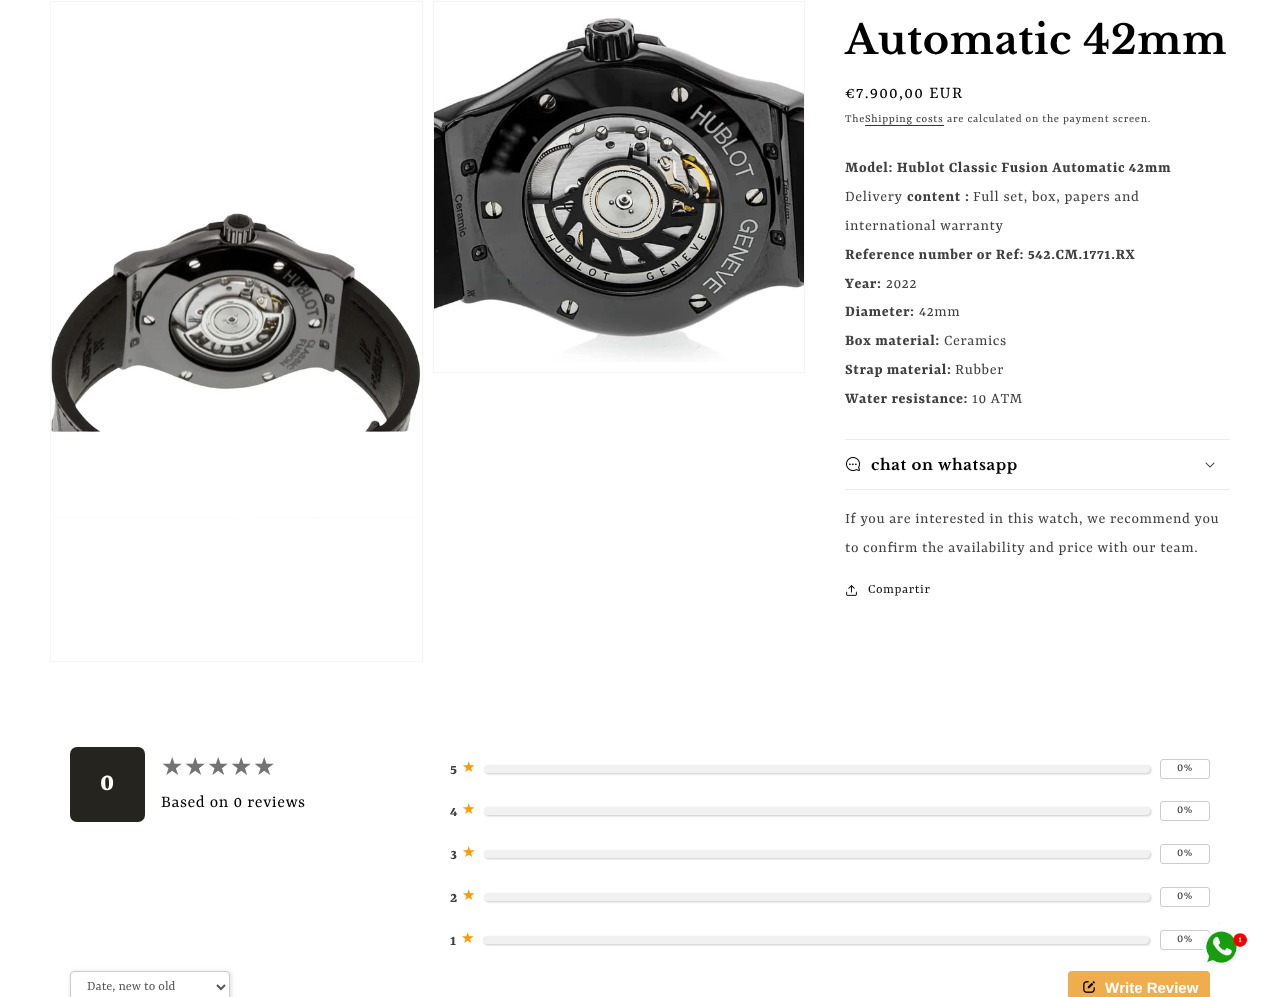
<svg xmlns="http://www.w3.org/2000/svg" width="1280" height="997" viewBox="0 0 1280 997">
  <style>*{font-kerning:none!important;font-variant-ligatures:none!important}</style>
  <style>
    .t1 { font: bold 40px Libre Baskerville; letter-spacing: 0.6px; fill: #000; }
    .t2 { font: 18px Rasa; letter-spacing: 1.25px; fill: #000; }
    .t3 { font: 12px Rasa; letter-spacing: 0.7px; fill: #404040; }
    .t4 { font: 12px Rasa; letter-spacing: 0.7px; fill: #363636; }
    .t5 { font: bold 16px Rasa; letter-spacing: 0.6px; fill: #404040; }
    .t6 { font: 16px Rasa; letter-spacing: 0.6px; fill: #404040; }
    .t7 { font: bold 15px Libre Baskerville; letter-spacing: 0.6px; fill: #000; }
    .t8 { font: 14px Rasa; letter-spacing: 0.6px; fill: #121212; }
    .t9 { font: bold 28px Rasa; letter-spacing: 0.6px; fill: #fff; }
    .t10 { font: 25px DejaVu Sans; letter-spacing: 0.6px; fill: #737373; }
    .t11 { font: 18px Rasa; letter-spacing: 0.6px; fill: #000; }
    .t12 { font: 15px DejaVu Sans; letter-spacing: 0.6px; fill: #f90; }
    .t13 { font: 13px Rasa; letter-spacing: 0.6px; fill: #404040; }
    .t14 { font: 14px Rasa; fill: #555; }
    .t15 { font: bold 15px Liberation Sans; fill: #fff; }
  </style>
  <rect width="100%" height="100%" fill="#fff"/>
  <rect x="50.5" y="1.5" width="372" height="660" fill="none" stroke="#f5f5f5"/>
  <image x="51" y="213" width="370" height="306" href="images/1.png"/>
  <rect x="433.5" y="1.5" width="371" height="371" fill="none" stroke="#f5f5f5"/>
  <image x="434" y="17" width="370" height="345" href="images/2.png"/>
  <text x="845" y="54" class="t1">Automatic 42mm</text>
  <text x="845" y="98" class="t2">€7.900,00 EUR</text>
  <text x="845" y="122" class="t3">The</text>
  <text x="865" y="122" class="t4">Shipping costs</text>
  <rect x="865" y="125" width="79" height="1" fill="#363636"/>
  <text x="947" y="122" class="t3">are calculated on the payment screen.</text>
  <text x="845" y="172" class="t5">Model: Hublot Classic Fusion Automatic 42mm</text>
  <text x="845" y="201" class="t6">Delivery</text>
  <text x="907" y="201" class="t5">content</text>
  <text x="965" y="201" class="t5">:</text>
  <text x="973" y="201" class="t6">Full set, box, papers and</text>
  <text x="845" y="230" class="t6">international warranty</text>
  <text x="845" y="259" class="t5">Reference number or Ref: 542.CM.1771.RX</text>
  <text x="845" y="288" class="t5">Year:</text>
  <text x="886" y="288" class="t6">2022</text>
  <text x="845" y="316" class="t5">Diameter:</text>
  <text x="919" y="316" class="t6">42mm</text>
  <text x="845" y="345" class="t5">Box material:</text>
  <text x="944" y="345" class="t6">Ceramics</text>
  <text x="845" y="374" class="t5">Strap material:</text>
  <text x="955" y="374" class="t6">Rubber</text>
  <text x="845" y="403" class="t5">Water resistance:</text>
  <text x="972" y="403" class="t6">10 ATM</text>
  <rect x="845" y="439" width="385" height="1" fill="#ebebeb"/>
  <rect x="845" y="489" width="385" height="1" fill="#ebebeb"/>
  <image x="846" y="457" width="14" height="14" href="images/3.png"/>
  <text x="871" y="470" class="t7">chat on whatsapp</text>
  <image x="1205" y="462" width="10" height="6" href="images/4.png"/>
  <text x="845" y="523" class="t6">If you are interested in this watch, we recommend you</text>
  <text x="845" y="552" class="t6">to confirm the availability and price with our team.</text>
  <image x="846" y="585" width="11" height="11" href="images/5.png"/>
  <text x="868" y="593" class="t8">Compartir</text>
  <rect x="70" y="747" width="75" height="75" rx="7" fill="#25241e"/>
  <text x="100" y="790" class="t9">0</text>
  <text x="161" y="775" class="t10">★★★★★</text>
  <text x="161" y="807" class="t11">Based on 0 reviews</text>
  <text x="450" y="774" class="t5">5</text>
  <text x="462" y="772" class="t12">★</text>
  <rect x="485" y="766" width="666" height="8" rx="4" fill="#b4b4b4ba" filter="blur(1px)"/>
  <rect x="484" y="765" width="666" height="8" rx="4" fill="#f1f1f1"/>
  <rect x="1160.5" y="759.5" width="49" height="19" rx="2.5" fill="none" stroke="#ccc"/>
  <text x="1177" y="771" class="t13">0%</text>
  <text x="450" y="816" class="t5">4</text>
  <text x="462" y="814" class="t12">★</text>
  <rect x="485" y="808" width="666" height="8" rx="4" fill="#b4b4b4ba" filter="blur(1px)"/>
  <rect x="484" y="807" width="666" height="8" rx="4" fill="#f1f1f1"/>
  <rect x="1160.5" y="801.5" width="49" height="19" rx="2.5" fill="none" stroke="#ccc"/>
  <text x="1177" y="813" class="t13">0%</text>
  <text x="450" y="859" class="t5">3</text>
  <text x="462" y="857" class="t12">★</text>
  <rect x="485" y="851" width="666" height="8" rx="4" fill="#b4b4b4ba" filter="blur(1px)"/>
  <rect x="484" y="850" width="666" height="8" rx="4" fill="#f1f1f1"/>
  <rect x="1160.5" y="844.5" width="49" height="19" rx="2.5" fill="none" stroke="#ccc"/>
  <text x="1177" y="856" class="t13">0%</text>
  <text x="450" y="902" class="t5">2</text>
  <text x="462" y="900" class="t12">★</text>
  <rect x="485" y="894" width="666" height="8" rx="4" fill="#b4b4b4ba" filter="blur(1px)"/>
  <rect x="484" y="893" width="666" height="8" rx="4" fill="#f1f1f1"/>
  <rect x="1160.5" y="887.5" width="49" height="19" rx="2.5" fill="none" stroke="#ccc"/>
  <text x="1177" y="899" class="t13">0%</text>
  <text x="450" y="945" class="t5">1</text>
  <text x="461" y="943" class="t12">★</text>
  <rect x="484" y="937" width="666" height="8" rx="4" fill="#b4b4b4ba" filter="blur(1px)"/>
  <rect x="483" y="936" width="666" height="8" rx="4" fill="#f1f1f1"/>
  <rect x="1160.5" y="930.5" width="49" height="19" rx="2.5" fill="none" stroke="#ccc"/>
  <text x="1177" y="942" class="t13">0%</text>
  <rect x="71" y="972" width="160" height="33" rx="4" fill="#dbdbdb" filter="blur(2.5px)"/>
  <rect x="70.5" y="971.5" width="159" height="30" rx="3.5" fill="#fff" stroke="#ccc"/>
  <path d="M217 985L221 989L225 985" fill="none" stroke="#555" stroke-width="2"/>
  <text x="87" y="990" class="t14">Date, new to old</text>
  <rect x="1068" y="971" width="142" height="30" rx="4" fill="#f0ad4e"/>
  <image x="1083" y="981" width="12" height="12" href="images/6.png"/>
  <text x="1105" y="993" class="t15">Write Review</text>
  <image x="1202" y="922" width="46" height="45" href="images/7.png"/>
</svg>
